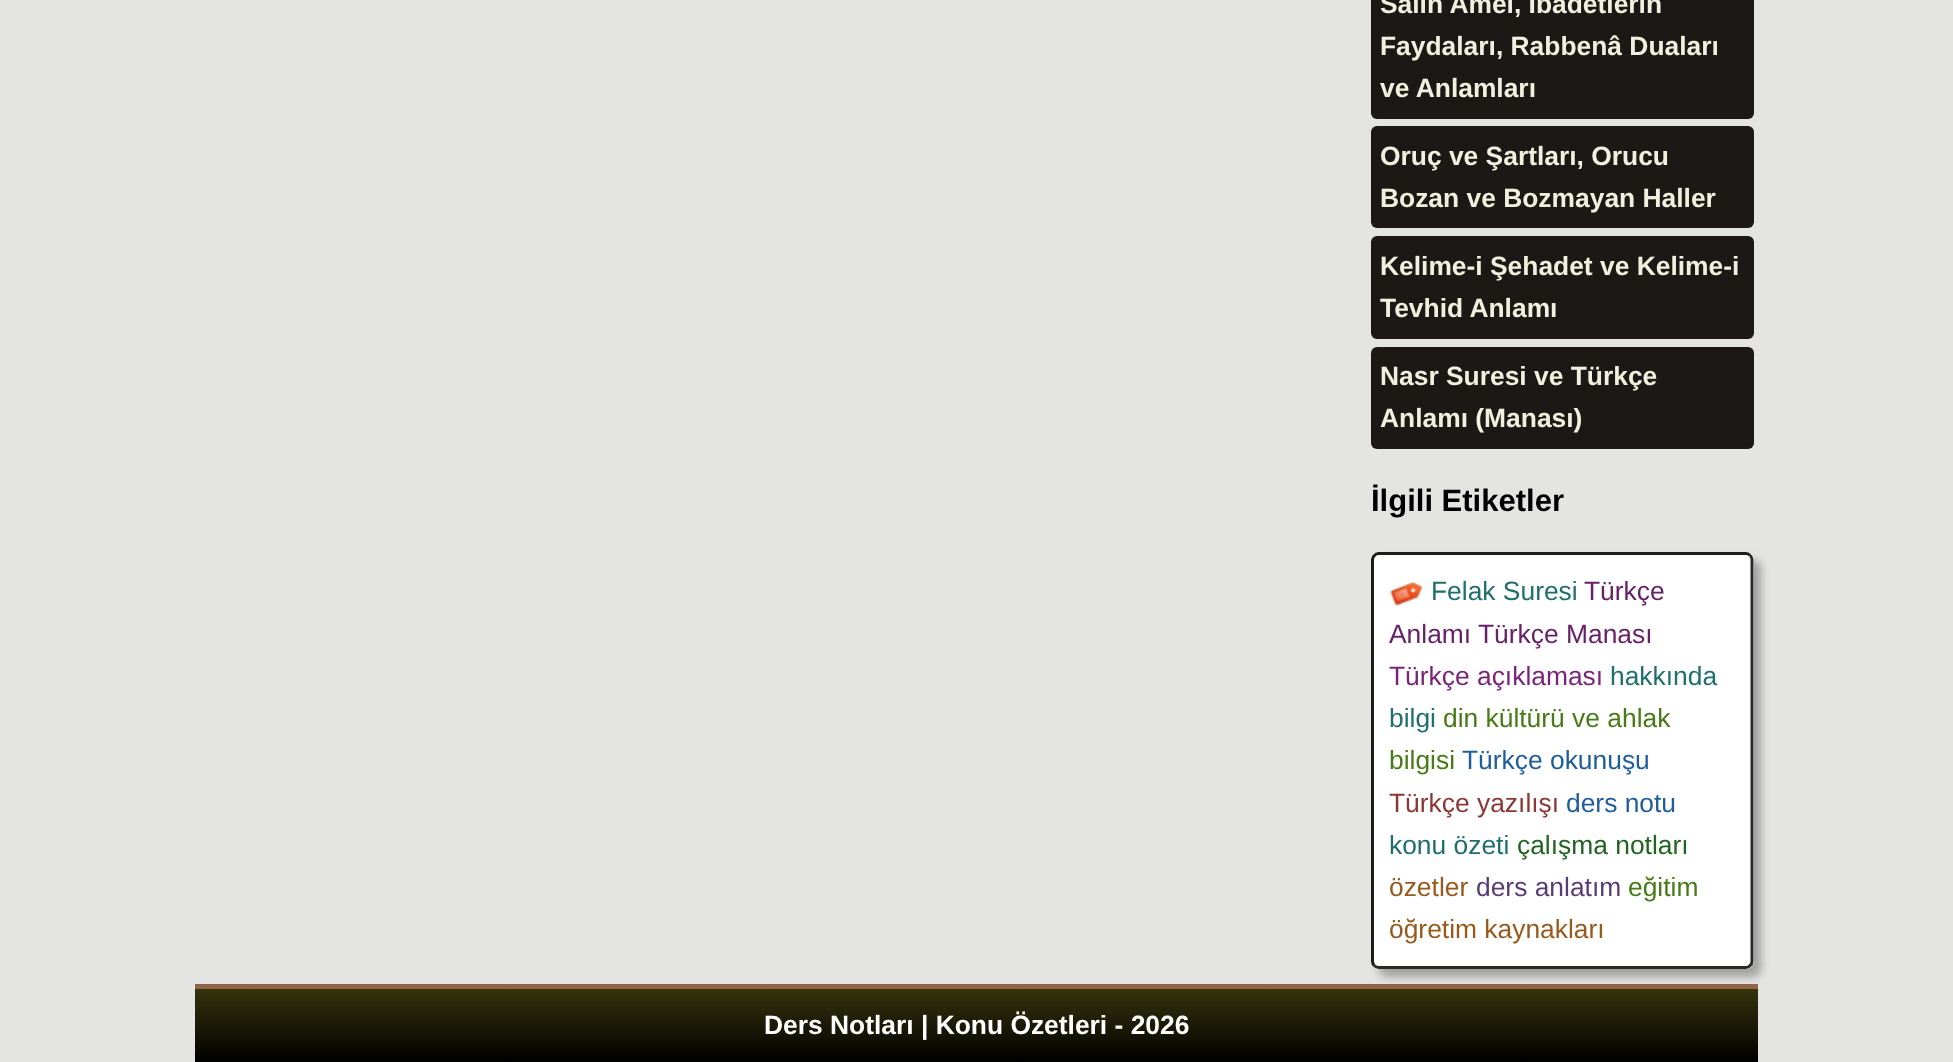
<svg xmlns="http://www.w3.org/2000/svg" width="1953" height="1062" viewBox="0 0 1953 1062">
  <style>
    .t1 { font: bold 26.4px Liberation Sans; fill: #f1f0df; }
    .t2 { font: bold 31px Liberation Sans; fill: #000; }
    .t3 { font: 26.4px Liberation Sans; fill: #1f6f6d; }
    .t4 { font: 26.4px Liberation Sans; fill: #672167; }
    .t5 { font: 26.4px Liberation Sans; fill: #78247a; }
    .t6 { font: 26.4px Liberation Sans; fill: #487a16; }
    .t7 { font: 26.4px Liberation Sans; fill: #1f5d9b; }
    .t8 { font: 26.4px Liberation Sans; fill: #8c3636; }
    .t9 { font: 26.4px Liberation Sans; fill: #206420; }
    .t10 { font: 26.4px Liberation Sans; fill: #985a1c; }
    .t11 { font: 26.4px Liberation Sans; fill: #593c76; }
    .t12 { font: bold 26.4px Liberation Sans; fill: #fff; }
  </style>
  <defs>
    <linearGradient id="g1" gradientUnits="userSpaceOnUse" x1="977" y1="1062" x2="977" y2="989"><stop offset="0" stop-color="#000"/><stop offset="1" stop-color="#36330d"/></linearGradient>
  </defs>
  <rect width="100%" height="100%" fill="#e4e4e2"/>
  <rect x="1371" y="-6" width="383" height="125" rx="6" fill="#1c1816"/>
  <text x="1380" y="13" class="t1">Salih Amel, İbadetlerin</text>
  <text x="1380" y="55" class="t1">Faydaları, Rabbenâ Duaları</text>
  <text x="1380" y="97" class="t1">ve Anlamları</text>
  <rect x="1371" y="126" width="383" height="102" rx="6" fill="#1c1816"/>
  <text x="1380" y="165" class="t1">Oruç ve Şartları, Orucu</text>
  <text x="1380" y="207" class="t1">Bozan ve Bozmayan Haller</text>
  <rect x="1371" y="236" width="383" height="103" rx="6" fill="#1c1816"/>
  <text x="1380" y="275" class="t1">Kelime-i Şehadet ve Kelime-i</text>
  <text x="1380" y="317" class="t1">Tevhid Anlamı</text>
  <rect x="1371" y="347" width="383" height="102" rx="6" fill="#1c1816"/>
  <text x="1380" y="385" class="t1">Nasr Suresi ve Türkçe</text>
  <text x="1380" y="427" class="t1">Anlamı (Manası)</text>
  <text x="1371" y="511" class="t2">İlgili Etiketler</text>
  <rect x="1379" y="560" width="382" height="417" rx="8" fill="#a0a0a0" filter="blur(4px)"/>
  <rect x="1371" y="552" width="383" height="417" rx="8" fill="#fff"/>
  <path d="M1750 555.5C1751.5 556.5 1752 558 1752 559.5V961.5C1752 963 1751.5 964.5 1750 965.5C1749 967 1747.5 967.5 1746 967.5H1378.5C1377 967.5 1375.5 967 1374.5 965.5" fill="none" stroke="#2b2928" stroke-width="3"/>
  <path d="M1374.5 965.5C1373 964.5 1372.5 963 1372.5 961.5V559.5C1372.5 558 1373 556.5 1374.5 555.5C1375.5 554 1377 553.5 1378.5 553.5H1746C1747.5 553.5 1749 554 1750 555.5" fill="none" stroke="#1d1b1b" stroke-width="3"/>
  <image x="1390" y="581" width="33" height="25" href="images/1.png"/>
  <text x="1431" y="600" class="t3">Felak Suresi</text>
  <text x="1584" y="600" class="t4">Türkçe</text>
  <text x="1389" y="643" class="t4">Anlamı</text>
  <text x="1478" y="643" class="t4">Türkçe Manası</text>
  <text x="1389" y="685" class="t5">Türkçe açıklaması</text>
  <text x="1610" y="685" class="t3">hakkında</text>
  <text x="1389" y="727" class="t3">bilgi</text>
  <text x="1443" y="727" class="t6">din kültürü ve ahlak</text>
  <text x="1389" y="769" class="t6">bilgisi</text>
  <text x="1462" y="769" class="t7">Türkçe okunuşu</text>
  <text x="1389" y="812" class="t8">Türkçe yazılışı</text>
  <text x="1566" y="812" class="t7">ders notu</text>
  <text x="1389" y="854" class="t3">konu özeti</text>
  <text x="1517" y="854" class="t9">çalışma notları</text>
  <text x="1389" y="896" class="t10">özetler</text>
  <text x="1476" y="896" class="t11">ders anlatım</text>
  <text x="1628" y="896" class="t6">eğitim</text>
  <text x="1389" y="938" class="t10">öğretim kaynakları</text>
  <rect x="195" y="989" width="1563" height="73" fill="url(#g1)"/>
  <rect x="195" y="984" width="1563" height="5" fill="#916347"/>
  <text x="764" y="1034" class="t12">Ders Notları | Konu Özetleri - 2026</text>
</svg>
